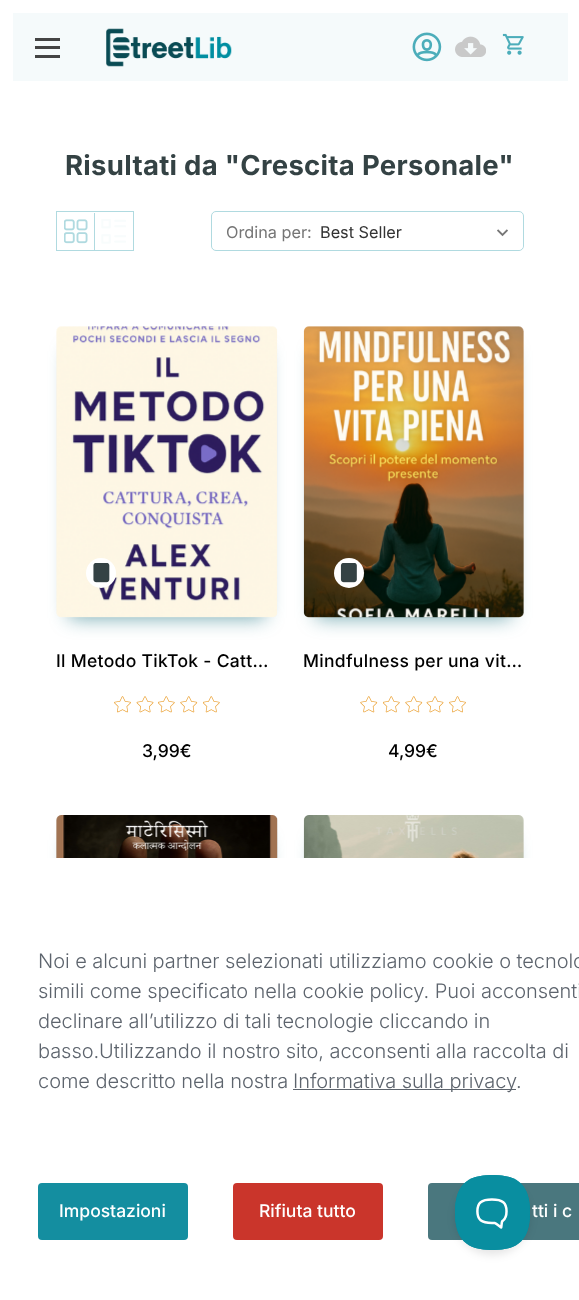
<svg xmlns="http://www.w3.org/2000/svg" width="579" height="1300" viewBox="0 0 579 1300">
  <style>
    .t1 { font: bold 27.5px Inter; letter-spacing: 0.3px; fill: #344244; }
    .t2 { font: 16.25px Inter; fill: #757575; }
    .t3 { font: 16.25px Inter; fill: #333; }
    .t4 { font: 500 17.5px Inter; letter-spacing: 0.3px; fill: #000; }
    .t5 { font: 500 17.5px Inter; fill: #000; }
    .t6 { font: 300 20px Inter; letter-spacing: -0.05px; fill: #5d646d; }
    .t7 { font: 500 17.5px Inter; fill: #fff; }
  </style>
  <rect width="100%" height="100%" fill="#fff"/>
  <rect x="13" y="13" width="555" height="68" fill="#f5fafb"/>
  <rect x="35" y="46" width="25" height="3" fill="#444"/>
  <rect x="35" y="38" width="25" height="3" fill="#444"/>
  <rect x="35" y="55" width="25" height="3" fill="#444"/>
  <image x="106" y="28" width="126" height="39" href="images/1.png"/>
  <image x="412" y="32" width="30" height="30" href="images/2.png"/>
  <image x="455" y="36" width="31" height="21" href="images/3.png"/>
  <image x="502" y="33" width="22" height="22" href="images/4.png"/>
  <text x="65" y="175" class="t1">Risultati da "Crescita Personale"</text>
  <rect x="56.5" y="211.5" width="77" height="39" fill="none" stroke="#b0dae0"/>
  <rect x="94" y="213" width="1" height="37" fill="#b0dae0"/>
  <image x="64" y="219" width="24" height="25" href="images/5.png"/>
  <image x="101" y="219" width="25" height="25" href="images/6.png"/>
  <rect x="211.5" y="211.5" width="312" height="39" rx="4.5" fill="none" stroke="#b0dae0"/>
  <text x="226" y="238" class="t2">Ordina per:</text>
  <rect x="316" y="213" width="207" height="37" rx="5" fill="#fff"/>
  <image x="497" y="229" width="11" height="8" href="images/7.png"/>
  <text x="320" y="238" class="t3">Best Seller</text>
  <rect x="69" y="351" width="196" height="267" fill="#08687691" filter="blur(9.5px)"/>
  <image x="56" y="326" width="222" height="291" href="images/8.png"/>
  <image x="56" y="326" width="221" height="292" href="images/9.png"/>
  <circle cx="101" cy="573" r="15" fill="#fff"/>
  <image x="93" y="563" width="17" height="20" href="images/10.png"/>
  <text x="56" y="667" class="t4">Il Metodo TikTok - Catt…</text>
  <image x="114" y="696" width="17" height="17" href="images/11.png"/>
  <image x="136" y="696" width="18" height="17" href="images/12.png"/>
  <image x="158" y="696" width="17" height="17" href="images/13.png"/>
  <image x="180" y="696" width="18" height="17" href="images/14.png"/>
  <image x="203" y="696" width="17" height="17" href="images/13.png"/>
  <text x="142" y="757" class="t5">3,99€</text>
  <rect x="316" y="351" width="195" height="267" fill="#08687691" filter="blur(9.5px)"/>
  <image x="304" y="326" width="220" height="292" href="images/16.png"/>
  <image x="303" y="326" width="221" height="292" href="images/15.png"/>
  <circle cx="349" cy="573" r="15" fill="#fff"/>
  <image x="340" y="563" width="17" height="20" href="images/17.png"/>
  <text x="303" y="667" class="t4">Mindfulness per una vit…</text>
  <image x="360" y="696" width="18" height="17" href="images/14.png"/>
  <image x="383" y="696" width="17" height="17" href="images/13.png"/>
  <image x="405" y="696" width="18" height="17" href="images/14.png"/>
  <image x="426" y="696" width="18" height="17" href="images/12.png"/>
  <image x="449" y="696" width="17" height="17" href="images/11.png"/>
  <text x="388" y="757" class="t5">4,99€</text>
  <rect x="69" y="840" width="196" height="266" fill="#08687691" filter="blur(9.5px)"/>
  <image x="56" y="815" width="222" height="43" href="images/18.png"/>
  <image x="56" y="815" width="222" height="43" href="images/19.png"/>
  <rect x="316" y="840" width="195" height="266" fill="#08687691" filter="blur(9.5px)"/>
  <image x="304" y="815" width="220" height="43" href="images/21.png"/>
  <image x="303" y="815" width="221" height="43" href="images/20.png"/>
  <rect x="0" y="858" width="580" height="430" rx="5" fill="#fff"/>
  <text x="38" y="968" class="t6">Noi e alcuni partner selezionati utilizziamo cookie o tecnolo</text>
  <text x="38" y="998" class="t6">simili come specificato nella cookie policy. Puoi acconsenti</text>
  <text x="38" y="1028" class="t6">declinare all’utilizzo di tali tecnologie cliccando in</text>
  <text x="38" y="1058" class="t6">basso.Utilizzando il nostro sito, acconsenti alla raccolta di</text>
  <text x="38" y="1088" class="t6">come descritto nella nostra</text>
  <rect x="293" y="1089" width="223" height="1" fill="#5d646d"/>
  <text x="293" y="1088" class="t6">Informativa sulla privacy</text>
  <text x="516" y="1088" class="t6">.</text>
  <rect x="38" y="1183" width="150" height="57" rx="4" fill="#148ea0"/>
  <text x="59" y="1217" class="t7">Impostazioni</text>
  <rect x="233" y="1183" width="150" height="57" rx="4" fill="#ca352b"/>
  <text x="259" y="1217" class="t7">Rifiuta tutto</text>
  <rect x="428" y="1183" width="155" height="57" rx="4" fill="#4a777e"/>
  <text x="532" y="1217" class="t7">tti i c</text>
  <rect x="455" y="1180" width="75" height="75" rx="37.5" fill="#0000001a" filter="blur(4.5px)"/>
  <image x="455" y="1175" width="75" height="75" href="images/22.png"/>
</svg>
